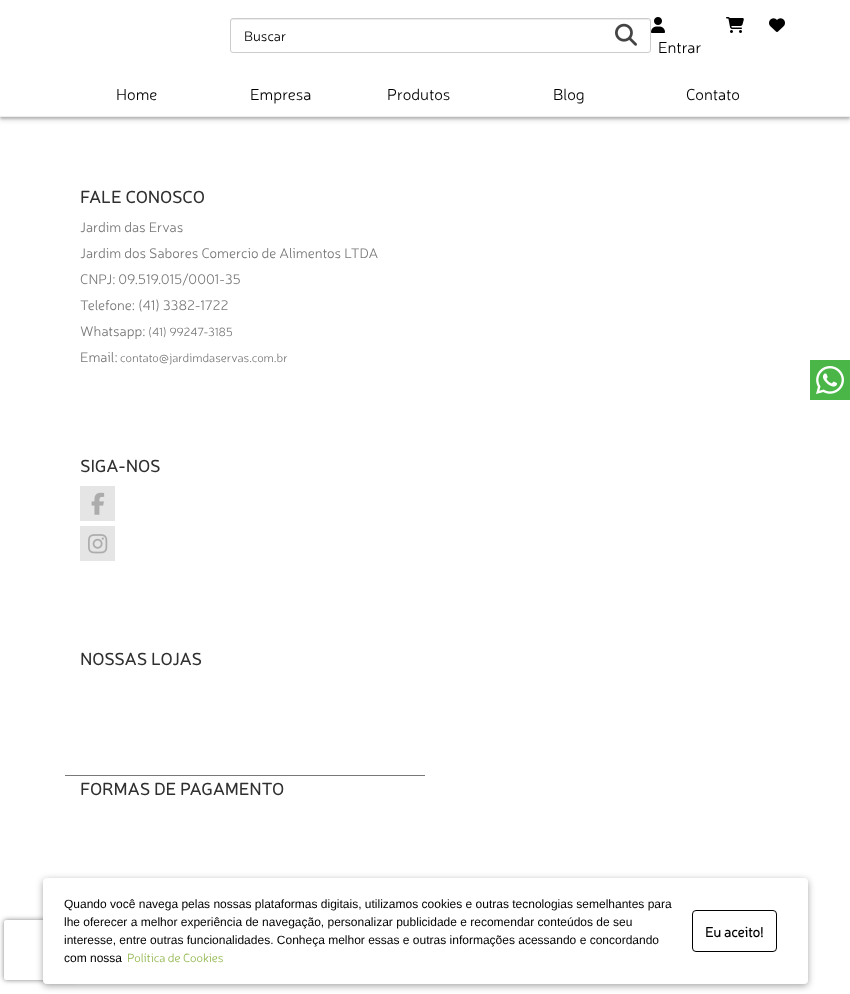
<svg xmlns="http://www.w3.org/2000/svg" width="850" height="994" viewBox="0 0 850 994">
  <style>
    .t1 { font: 300 14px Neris; fill: #000; }
    .t2 { font: 300 16px Neris; fill: #000; }
    .t3 { font: bold 17px Neris; letter-spacing: 0.3px; fill: #303030; }
    .t4 { font: 300 14px Neris; fill: #787878; }
    .t5 { font: 300 12px Neris; fill: #787878; }
    .t6 { font: 12px Liberation Sans; fill: #000; }
    .t7 { font: 300 12px Neris; fill: #8fb64a; }
    .t8 { font: bold 14px Neris; fill: #000; }
  </style>
  <defs>
    <clipPath id="clip1"><path d="M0 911H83V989H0ZM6 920H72C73 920 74 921 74 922V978C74 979 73 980 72 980H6C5 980 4 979 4 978V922C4 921 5 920 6 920Z" clip-rule="evenodd"/></clipPath>
  </defs>
  <rect width="100%" height="100%" fill="#fff"/>
  <rect x="0" y="4" width="850" height="117" fill="#0000001a" filter="blur(2px)"/>
  <rect x="0" y="2" width="850" height="117" fill="#00000033" filter="blur(1px)"/>
  <rect x="0" y="0" width="850" height="116" fill="#fff"/>
  <path d="M233 20H648C649 20 650 21 650 22V20L648 19H232C231 20 231 21 231 22C231 21 232 20 233 20Z" fill="#ececec"/>
  <rect x="230.5" y="18.5" width="420" height="34" rx="2.5" fill="none" stroke="#ccc"/>
  <text x="244" y="41" class="t1">Buscar</text>
  <image x="615" y="23" width="22" height="23" href="images/1.png"/>
  <image x="726" y="17" width="18" height="16" href="images/2.png"/>
  <image x="769" y="18" width="16" height="14" href="images/3.png"/>
  <image x="651" y="17" width="14" height="16" href="images/4.png"/>
  <text x="658" y="53" class="t2">Entrar</text>
  <rect x="0" y="116" width="850" height="1" fill="#eee"/>
  <text x="116" y="100" class="t2">Home</text>
  <text x="250" y="100" class="t2">Empresa</text>
  <text x="387" y="100" class="t2">Produtos</text>
  <text x="553" y="100" class="t2">Blog</text>
  <text x="686" y="100" class="t2">Contato</text>
  <text x="80" y="203" class="t3">FALE CONOSCO</text>
  <text x="80" y="232" class="t4">Jardim das Ervas</text>
  <text x="80" y="258" class="t4">Jardim dos Sabores Comercio de Alimentos LTDA</text>
  <text x="80" y="284" class="t4">CNPJ: 09.519.015/0001-35</text>
  <text x="80" y="310" class="t4">Telefone: (41) 3382-1722</text>
  <text x="80" y="336" class="t4">Whatsapp:</text>
  <text x="148" y="336" class="t5">(41) 99247-3185</text>
  <text x="80" y="362" class="t4">Email:</text>
  <text x="120" y="362" class="t5">contato@jardimdaservas.com.br</text>
  <text x="80" y="472" class="t3">SIGA-NOS</text>
  <rect x="80" y="486" width="35" height="35" fill="#e5e5e5"/>
  <image x="91" y="492" width="14" height="23" href="images/5.png"/>
  <rect x="80" y="526" width="35" height="35" fill="#e5e5e5"/>
  <image x="88" y="534" width="20" height="20" href="images/6.png"/>
  <text x="80" y="665" class="t3">NOSSAS LOJAS</text>
  <rect x="65" y="775" width="360" height="1" fill="#787878"/>
  <text x="80" y="795" class="t3">FORMAS DE PAGAMENTO</text>
  <rect x="810" y="360" width="40" height="40" fill="#4ab647"/>
  <image x="816" y="366" width="28" height="28" href="images/7.png"/>
  <g clip-path="url(#clip1)">
    <rect x="4" y="920" width="70" height="60" rx="2" fill="#808080" filter="blur(2.5px)"/>
  </g>
  <rect x="43" y="880" width="765" height="106" rx="4" fill="#00000059" filter="blur(3.5px)"/>
  <rect x="43" y="878" width="765" height="106" rx="4" fill="#fff"/>
  <text x="64" y="908" class="t6">Quando você navega pelas nossas plataformas digitais, utilizamos cookies e outras tecnologias semelhantes para</text>
  <text x="64" y="926" class="t6">lhe oferecer a melhor experiência de navegação, personalizar publicidade e recomendar conteúdos de seu</text>
  <text x="64" y="944" class="t6">interesse, entre outras funcionalidades. Conheça melhor essas e outras informações acessando e concordando</text>
  <text x="64" y="962" class="t6">com nossa</text>
  <text x="127" y="962" class="t7">Política de Cookies</text>
  <rect x="692.5" y="910.5" width="84" height="41" rx="3.5" fill="none" stroke="#000"/>
  <text x="705" y="937" class="t8">Eu aceito!</text>
</svg>
